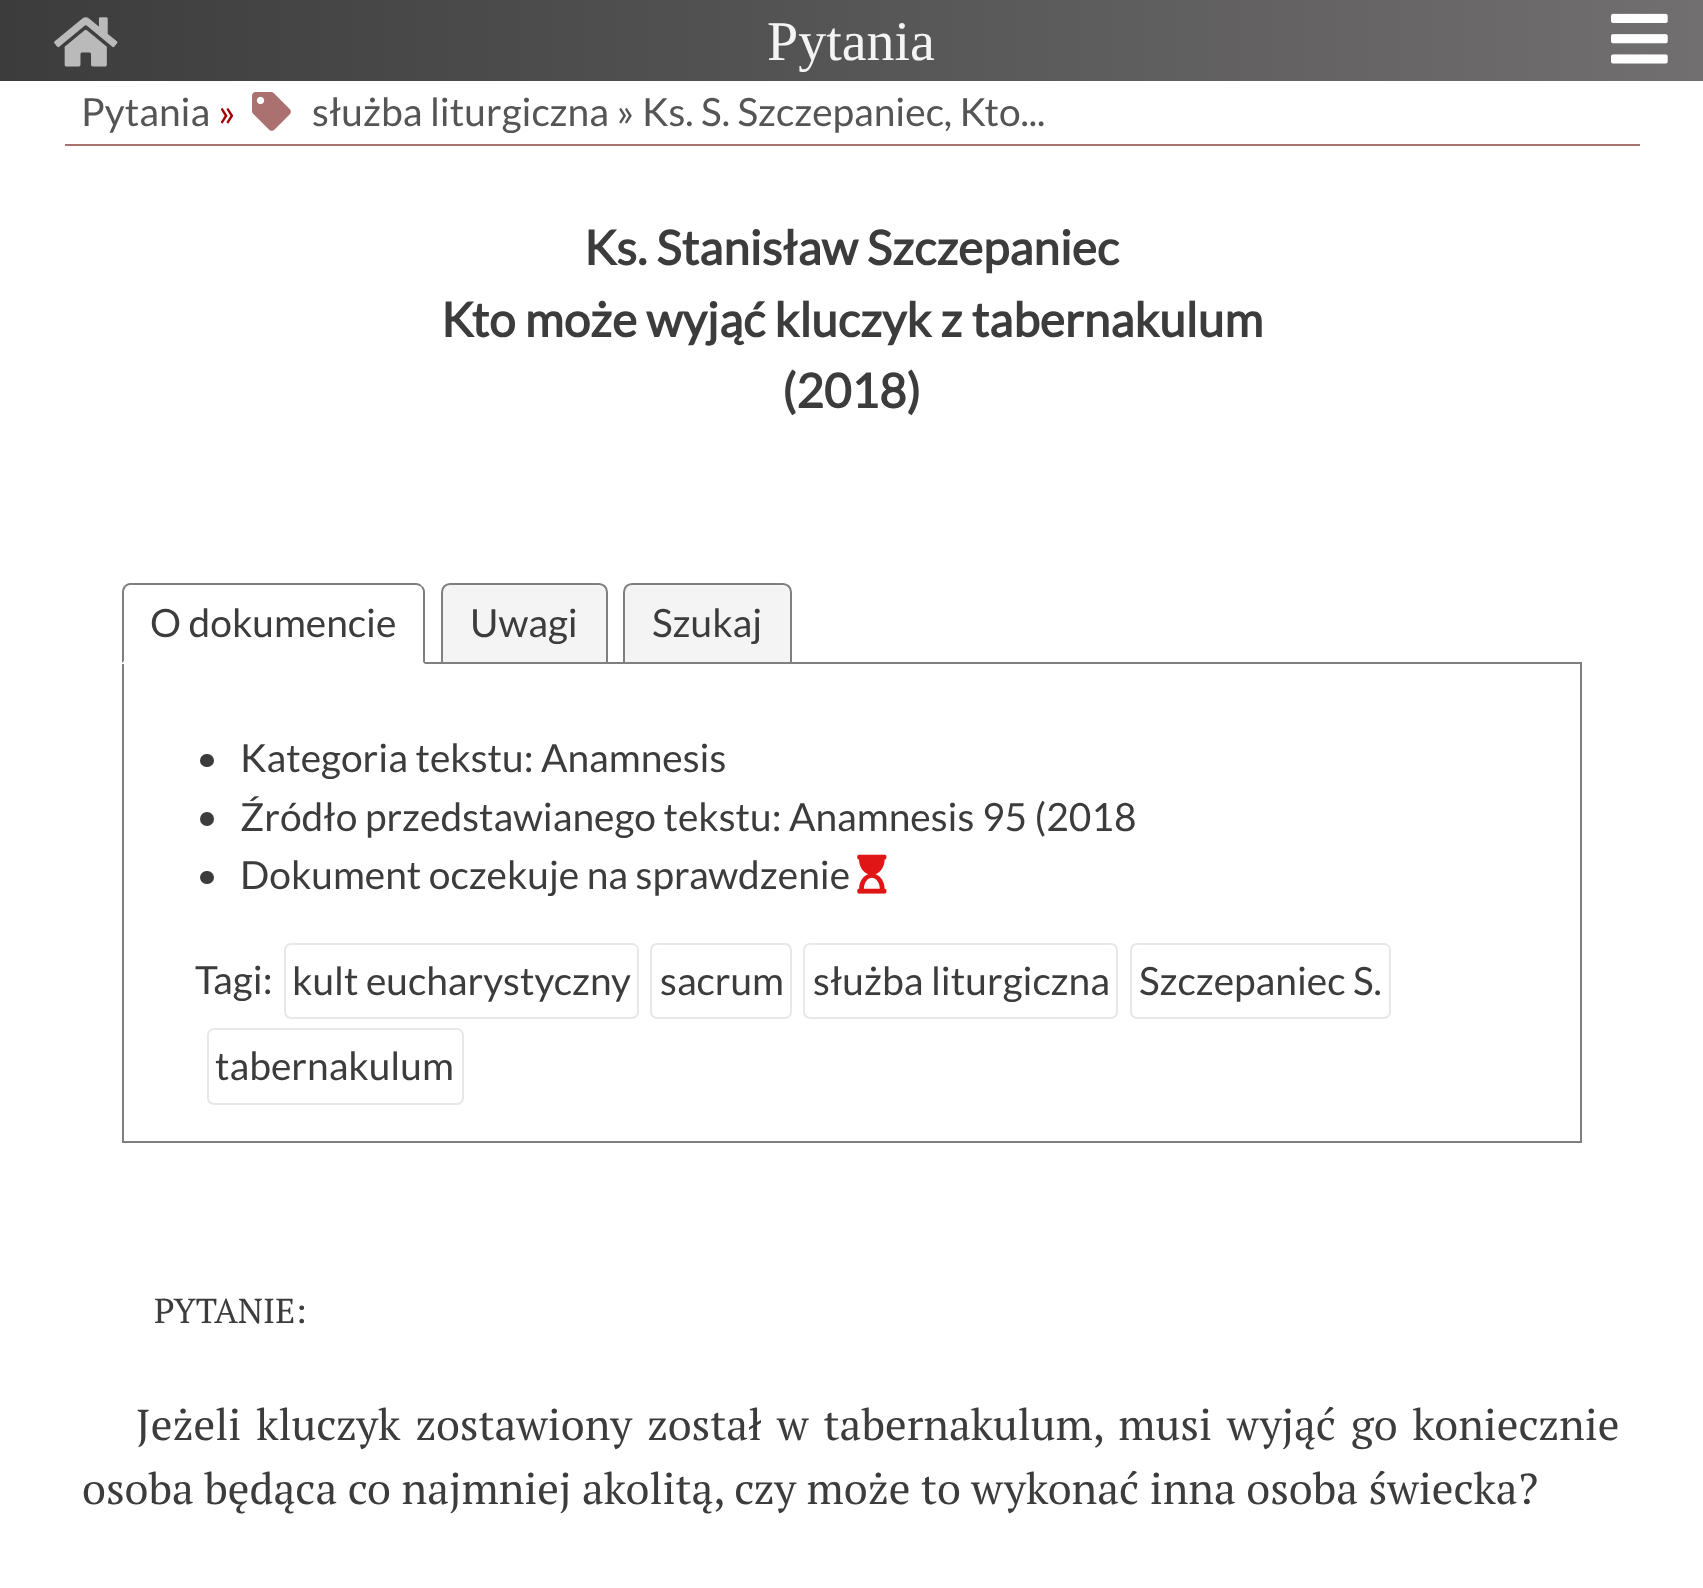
<svg xmlns="http://www.w3.org/2000/svg" width="1703" height="1588" viewBox="0 0 1703 1588">
  <style>
    .t1 { font: 56px Liberation Serif; fill: #f4f4f4; }
    .t2 { font: 38.9px Lato; fill: #555; }
    .t3 { font: 38.9px Lato; fill: #a40202; }
    .t4 { font: bold 47.5px Lato; fill: #3c3c3c; }
    .t5 { font: 38.9px Lato; fill: #3c3c3c; }
    .t6 { font: 34.5px PT Serif; fill: #3c3c3c; }
    .t7 { font: 43.2px PT Serif; fill: #3c3c3c; }
  </style>
  <defs>
    <linearGradient id="g1" gradientUnits="userSpaceOnUse" x1="0" y1="73" x2="1703" y2="73"><stop offset="0" stop-color="#3c3c3c"/><stop offset="1" stop-color="#716f6f"/></linearGradient>
  </defs>
  <rect width="100%" height="100%" fill="#fff"/>
  <rect x="0" y="0" width="1703" height="81" fill="url(#g1)"/>
  <image x="54" y="17" width="64" height="50" href="images/1.png"/>
  <text x="767" y="60" class="t1">Pytania</text>
  <image x="1611" y="13" width="57" height="51" href="images/2.png"/>
  <rect x="65" y="144" width="1575" height="2" fill="#ab7171"/>
  <text x="81" y="126" class="t2">Pytania</text>
  <text x="218" y="126" class="t3">»</text>
  <image x="252" y="92" width="39" height="39" href="images/3.png"/>
  <text x="312" y="126" class="t2">służba liturgiczna » Ks. S. Szczepaniec, Kto...</text>
  <text x="584" y="265" class="t4">Ks. Stanisław Szczepaniec</text>
  <text x="441" y="337" class="t4">Kto może wyjąć kluczyk z tabernakulum</text>
  <text x="782" y="408" class="t4">(2018)</text>
  <rect x="123" y="663" width="1458" height="479" fill="none" stroke="#807f7f" stroke-width="2"/>
  <path d="M131 583H416C421 583 425 587 425 592V664H122V592C122 587 126 583 131 583Z" fill="#fff"/>
  <path d="M130 583C128 583 126 584 124 586L126 587C127 586 128 585 130 585H416C418 585 420 586 421 587L422 586C421 584 418 583 416 583Z" fill="#807f7f"/>
  <path d="M425 664V592C425 590 424 587 422 586L421 587C422 588 423 590 423 592V662Z" fill="#807f7f"/>
  <path d="M124 586C123 587 122 590 122 592V663L124 661V592C124 590 125 588 126 587Z" fill="#807f7f"/>
  <text x="150" y="637" class="t5">O dokumencie</text>
  <path d="M450 584H599C603.5 584 607 587.5 607 592V663H442V592C442 587.5 445.5 584 450 584Z" fill="#f4f4f4" stroke="#807f7f" stroke-width="2"/>
  <text x="470" y="637" class="t5">Uwagi</text>
  <path d="M632 584H783C787.5 584 791 587.5 791 592V663H624V592C624 587.5 627.5 584 632 584Z" fill="#f4f4f4" stroke="#807f7f" stroke-width="2"/>
  <text x="652" y="637" class="t5">Szukaj</text>
  <rect x="200" y="754" width="14" height="13" rx="6.5" fill="#3c3c3c"/>
  <text x="240" y="772" class="t5">Kategoria tekstu: Anamnesis</text>
  <circle cx="207" cy="819" r="7" fill="#3c3c3c"/>
  <text x="240" y="831" class="t5">Źródło przedstawianego tekstu: Anamnesis 95 (2018</text>
  <rect x="200" y="871" width="14" height="13" rx="6.5" fill="#3c3c3c"/>
  <text x="240" y="889" class="t5">Dokument oczekuje na sprawdzenie</text>
  <image x="857" y="854" width="30" height="40" href="images/4.png"/>
  <text x="195" y="994" class="t5">Tagi:</text>
  <rect x="285" y="944" width="353" height="74" rx="6" fill="none" stroke="#e9e7e7" stroke-width="2"/>
  <text x="292" y="995" class="t5">kult eucharystyczny</text>
  <rect x="651" y="944" width="140" height="74" rx="6" fill="none" stroke="#e9e7e7" stroke-width="2"/>
  <text x="660" y="995" class="t5">sacrum</text>
  <rect x="804" y="944" width="313" height="74" rx="6" fill="none" stroke="#e9e7e7" stroke-width="2"/>
  <text x="813" y="995" class="t5">służba liturgiczna</text>
  <rect x="1131" y="944" width="259" height="74" rx="6" fill="none" stroke="#e9e7e7" stroke-width="2"/>
  <text x="1139" y="995" class="t5">Szczepaniec S.</text>
  <rect x="208" y="1029" width="255" height="75" rx="6" fill="none" stroke="#e9e7e7" stroke-width="2"/>
  <text x="215" y="1080" class="t5">tabernakulum</text>
  <text x="154" y="1323" class="t6">PYTANIE:</text>
  <text x="136" y="1440" word-spacing="4.5" class="t7">Jeżeli kluczyk zostawiony został w tabernakulum, musi wyjąć go koniecznie</text>
  <text x="82" y="1504" class="t7">osoba będąca co najmniej akolitą, czy może to wykonać inna osoba świecka?</text>
</svg>
